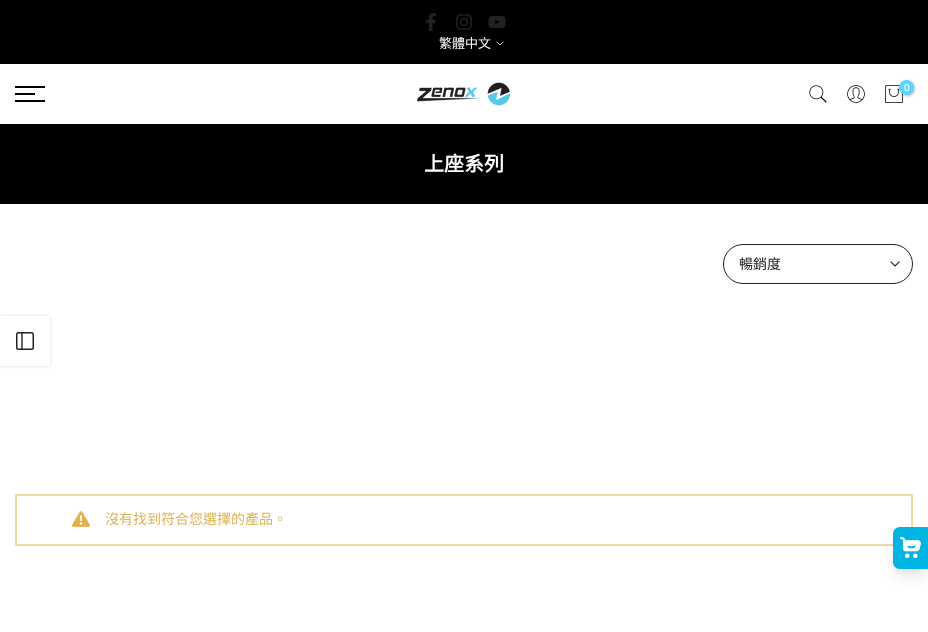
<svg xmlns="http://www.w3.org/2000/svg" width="928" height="632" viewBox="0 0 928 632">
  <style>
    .t1 { font: 13px Noto Sans CJK TC; fill: #fff; }
    .t2 { font: 10px Liberation Sans; fill: #fff; }
    .t3 { font: bold 20px Noto Sans CJK TC; fill: #fff; }
    .t4 { font: 14px Noto Sans CJK TC; fill: #222; }
    .t5 { font: 14px Noto Sans CJK TC; fill: #e0b252; }
  </style>
  <defs>
    <clipPath id="clip1"><path d="M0 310H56V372H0ZM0 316H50V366H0Z" clip-rule="evenodd"/></clipPath>
  </defs>
  <rect width="100%" height="100%" fill="#fff"/>
  <rect x="0" y="0" width="928" height="64" fill="#000"/>
  <image x="426" y="13" width="10" height="18" href="images/1.png"/>
  <image x="456" y="14" width="16" height="16" href="images/2.png"/>
  <image x="488" y="16" width="18" height="12" href="images/3.png"/>
  <text x="439" y="48" class="t1">繁體中文</text>
  <path d="M503 42L500 45L497 42" fill="none" stroke="#fff" stroke-width="0.8" stroke-linecap="square"/>
  <rect x="15" y="86" width="30" height="2" fill="#000"/>
  <rect x="15" y="93" width="20" height="2" fill="#000"/>
  <rect x="15" y="100" width="30" height="2" fill="#000"/>
  <image x="417" y="82" width="94" height="24" href="images/4.png"/>
  <image x="809" y="85" width="18" height="18" href="images/5.png"/>
  <image x="847" y="85" width="18" height="18" href="images/6.png"/>
  <image x="885" y="85" width="18" height="18" href="images/7.png"/>
  <rect x="900" y="81" width="15" height="15" rx="7.5" fill="#0000004d" filter="blur(1.5px)"/>
  <circle cx="906.5" cy="87.5" r="7.5" fill="#5bd7ff"/>
  <text x="904" y="91" class="t2">0</text>
  <rect x="0" y="124" width="928" height="80" fill="#000"/>
  <text x="424" y="171" class="t3">上座系列</text>
  <g clip-path="url(#clip1)">
    <rect x="0" y="316" width="50" height="50" fill="#00000026" filter="blur(1.5px)"/>
  </g>
  <rect x="16.75" y="332.75" width="16.5" height="16.5" rx="1.75" fill="none" stroke="#222" stroke-width="1.5"/>
  <path d="M22 333V349" fill="none" stroke="#222" stroke-width="1.4" stroke-linecap="round" stroke-linejoin="round"/>
  <rect x="723.5" y="244.5" width="189" height="39" rx="19.5" fill="none" stroke="#222"/>
  <text x="739" y="269" class="t4">暢銷度</text>
  <path d="M899 262L895 266L891 262" fill="none" stroke="#222" stroke-width="1.1" stroke-linecap="square"/>
  <rect x="16" y="495" width="896" height="50" fill="none" stroke="#f0d9a9" stroke-width="2"/>
  <image x="72" y="511" width="18" height="16" href="images/8.png"/>
  <text x="105" y="524" class="t5">沒有找到符合您選擇的產品。</text>
  <rect x="897" y="535" width="27" height="34" rx="3" fill="#0000001a" filter="blur(3px)"/>
  <rect x="896" y="540" width="29" height="36" rx="4" fill="#0000001a" filter="blur(7.5px)"/>
  <path d="M900 527H928V569H900C896 569 893 566 893 562V534C893 530 896 527 900 527Z" fill="#00b4e4"/>
  <image x="900" y="537" width="21" height="21" href="images/9.png"/>
</svg>
